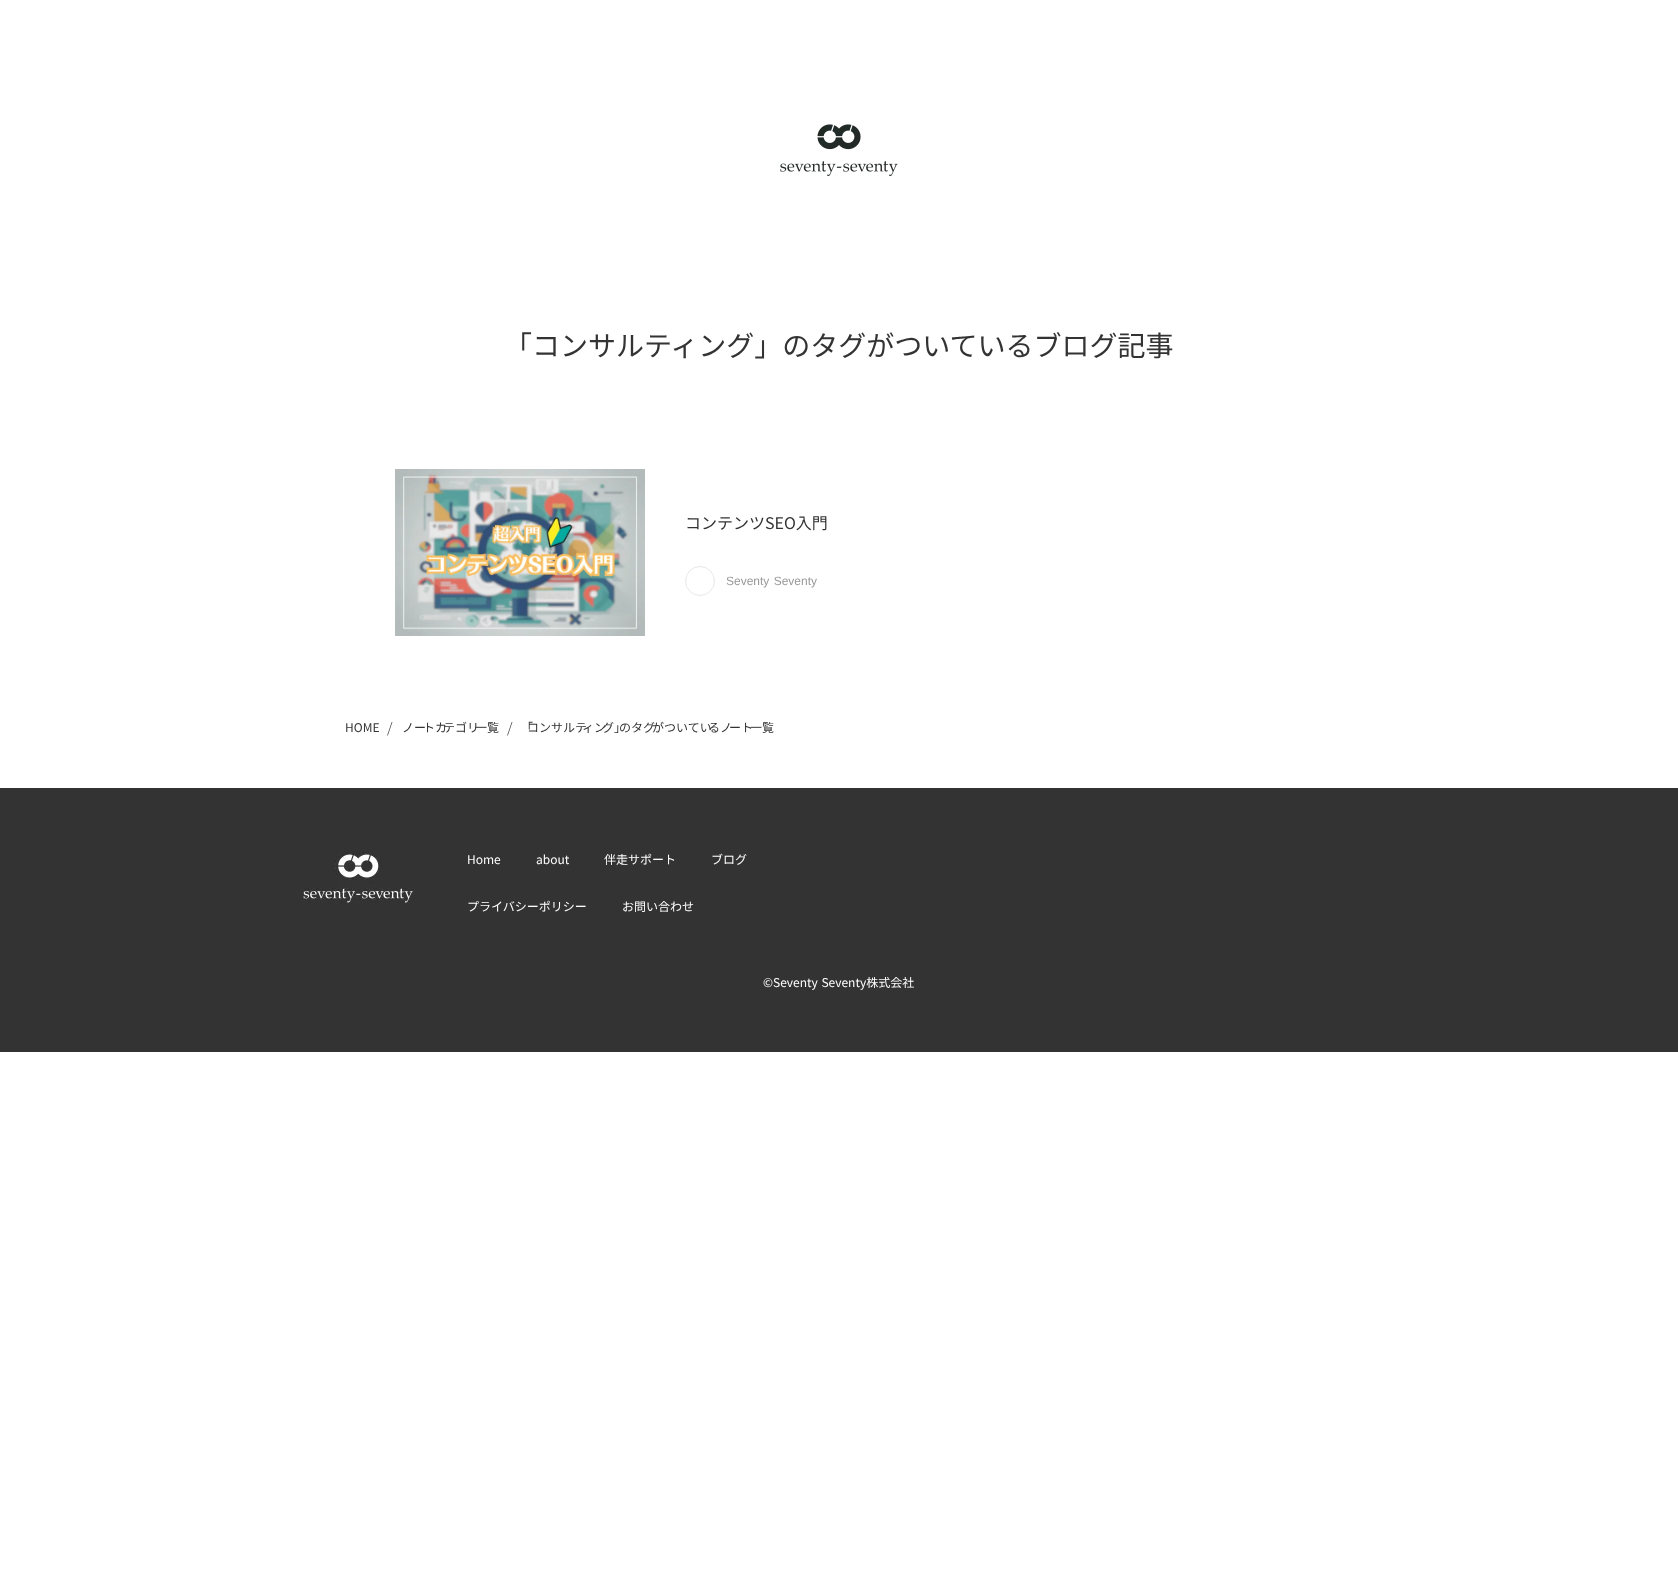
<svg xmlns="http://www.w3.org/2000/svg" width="1678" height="1585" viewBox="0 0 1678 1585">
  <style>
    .t1 { font: 28px Noto Sans JP; fill: #333; }
    .t2 { font: 16px Noto Sans JP; fill: #333; }
    .t3 { font: 12px Liberation Sans; fill: #999; }
    .t4 { font: 12px Noto Sans JP; fill: #333; }
    .t5 { font: 300 14px Noto Sans JP; letter-spacing: 1px; fill: #333; }
    .t6 { font: 12px Noto Sans JP; fill: #fff; }
  </style>
  <rect width="100%" height="100%" fill="#fff"/>
  <image x="780" y="124" width="118" height="52" href="images/1.png"/>
  <text x="504" y="356" class="t1">「コンサルティング」のタグがついているブログ記事</text>
  <image x="395" y="469" width="250" height="167" href="images/2.png"/>
  <text x="685" y="529" class="t2">コンテンツSEO入門</text>
  <circle cx="700" cy="581" r="14.5" fill="none" stroke="#e8e8e8"/>
  <text x="726" y="585" word-spacing="1" class="t3">Seventy Seventy</text>
  <text x="345" y="732" class="t4">HOME</text>
  <text x="387" y="733" class="t5">/</text>
  <text x="402" y="732" class="t4">ノー</text>
  <text x="423" y="732" class="t4">トカ</text>
  <text x="443" y="732" class="t4">テゴリ</text>
  <text x="475" y="732" class="t4">一覧</text>
  <text x="507" y="733" class="t5">/</text>
  <text x="521" y="732" class="t4">「</text>
  <text x="527" y="732" class="t4">コンサルテ</text>
  <text x="582" y="732" class="t4">ィン</text>
  <text x="602" y="732" class="t4">グ」</text>
  <text x="619" y="732" class="t4">のタグ</text>
  <text x="652" y="732" class="t4">がついてい</text>
  <text x="708" y="732" class="t4">るノ</text>
  <text x="729" y="732" class="t4">ート</text>
  <text x="750" y="732" class="t4">一覧</text>
  <rect x="0" y="788" width="1678" height="264" fill="#333"/>
  <image x="303" y="852" width="112" height="52" href="images/3.png"/>
  <text x="467" y="864" class="t6">Home</text>
  <text x="536" y="864" class="t6">about</text>
  <text x="604" y="864" class="t6">伴走サポート</text>
  <text x="711" y="864" class="t6">ブログ</text>
  <text x="467" y="911" class="t6">プライバシーポリシー</text>
  <text x="622" y="911" class="t6">お問い合わせ</text>
  <text x="763" y="987" word-spacing="1" class="t6">©Seventy Seventy株式会社</text>
</svg>
